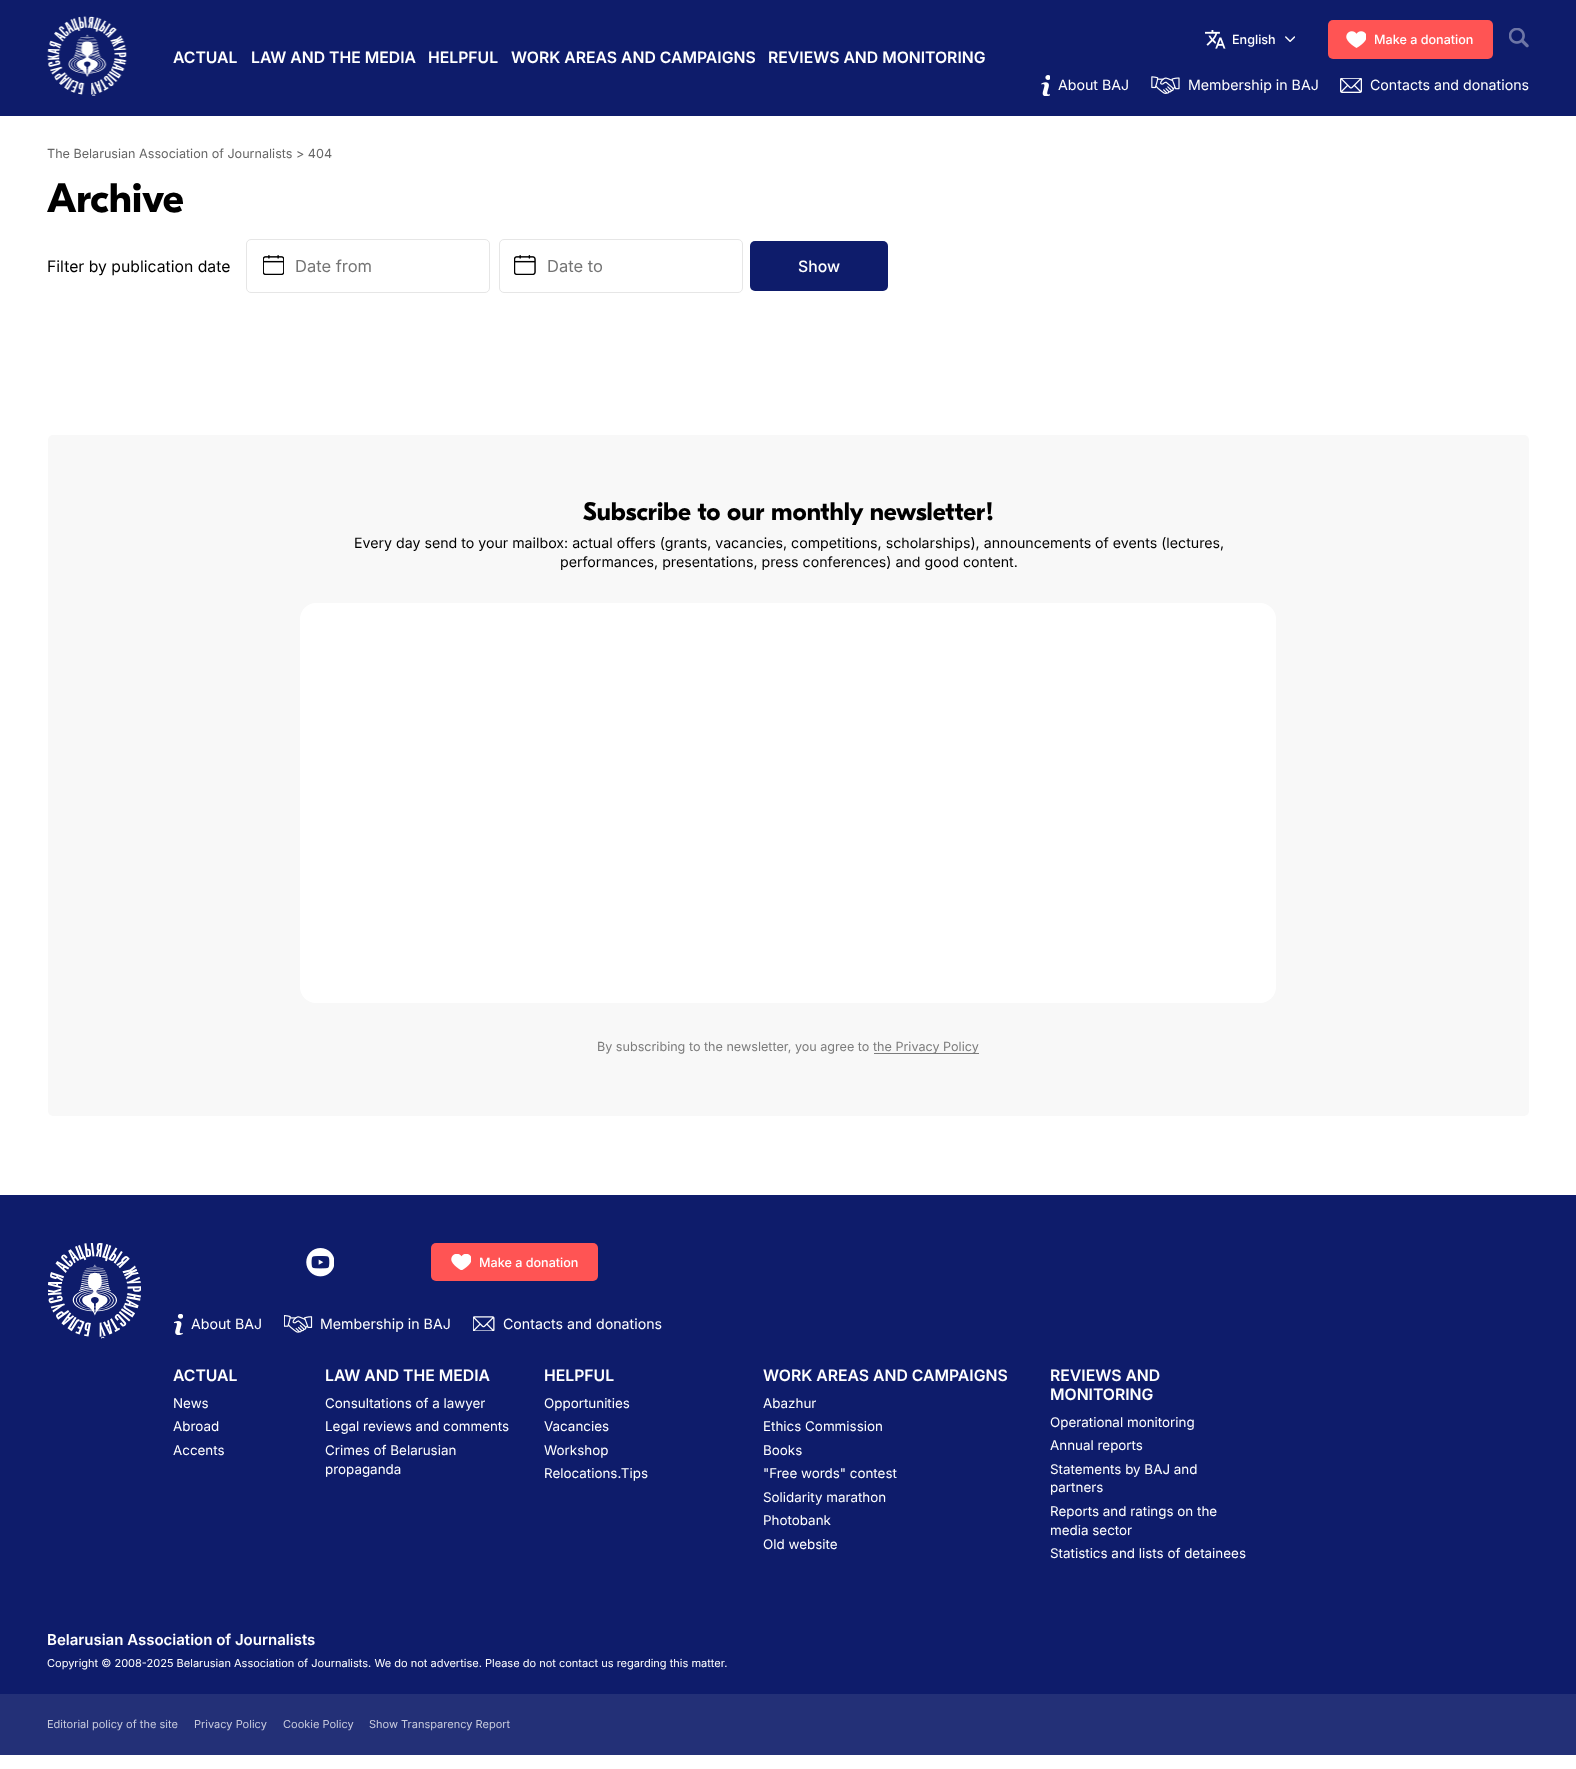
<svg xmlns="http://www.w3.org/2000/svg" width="1576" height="1769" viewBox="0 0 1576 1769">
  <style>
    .t1 { font: 600 15.75px Inter; fill: #fff; }
    .t2 { font: 500 12.6px Inter; fill: #fff; }
    .t3 { font: 14.2px Inter; fill: #fff; }
    .t4 { font: 12.6px Inter; fill: #666; }
    .t5 { font: bold 41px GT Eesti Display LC; fill: #000; }
    .t6 { font: 15.75px Inter; fill: #000; }
    .t7 { font: 16.5px Inter; fill: #757575; }
    .t8 { font: 500 15.75px Inter; fill: #fff; }
    .t9 { font: bold 25.25px GT Eesti Display LC; fill: #000; }
    .t10 { font: 14.2px Inter; fill: #000; }
    .t11 { font: 12.6px Inter; fill: #7c7c7c; }
    .t12 { font: 13.4px Inter; fill: #fff; }
    .t13 { font: 600 15px Inter; fill: #fff; }
    .t14 { font: 11.03px Inter; fill: #fff; }
    .t15 { font: 11.03px Inter; fill: #c8cbdd; }
  </style>
  <rect width="100%" height="100%" fill="#fff"/>
  <rect x="0" y="0" width="1576" height="116" fill="#0e1c6b"/>
  <image x="47" y="16" width="80" height="80" href="images/1.png"/>
  <text x="173" y="63" class="t1">ACTUAL</text>
  <text x="251" y="63" class="t1">LAW AND THE MEDIA</text>
  <text x="428" y="63" class="t1">HELPFUL</text>
  <text x="511" y="63" class="t1">WORK AREAS AND CAMPAIGNS</text>
  <text x="768" y="63" class="t1">REVIEWS AND MONITORING</text>
  <image x="1205" y="30" width="21" height="19" href="images/2.png"/>
  <text x="1232" y="44" class="t2">English</text>
  <image x="1285" y="36" width="10" height="6" href="images/3.png"/>
  <rect x="1328" y="20" width="165" height="39" rx="5" fill="#ff5454"/>
  <image x="1346" y="31" width="20" height="17" href="images/4.png"/>
  <text x="1374" y="44" class="t2">Make a donation</text>
  <image x="1509" y="28" width="20" height="20" href="images/5.png"/>
  <image x="1041" y="75" width="9" height="21" href="images/6.png"/>
  <text x="1058" y="90" class="t3">About BAJ</text>
  <image x="1151" y="76" width="29" height="18" href="images/7.png"/>
  <text x="1188" y="90" class="t3">Membership in BAJ</text>
  <image x="1340" y="78" width="22" height="15" href="images/8.png"/>
  <text x="1370" y="90" class="t3">Contacts and donations</text>
  <text x="47" y="158" class="t4">The Belarusian Association of Journalists &gt; 404</text>
  <text x="47" y="212" class="t5">Archive</text>
  <text x="47" y="272" class="t6">Filter by publication date</text>
  <rect x="246.5" y="239.5" width="243" height="53" rx="4.5" fill="none" stroke="#e6e6e6"/>
  <image x="263" y="255" width="21" height="20" href="images/9.png"/>
  <text x="295" y="272" class="t7">Date from</text>
  <rect x="499.5" y="239.5" width="243" height="53" rx="4.5" fill="none" stroke="#e6e6e6"/>
  <image x="514" y="255" width="22" height="20" href="images/10.png"/>
  <text x="547" y="272" class="t7">Date to</text>
  <rect x="750" y="241" width="138" height="50" rx="5" fill="#0e1c6b"/>
  <text x="798" y="272" class="t8">Show</text>
  <rect x="48" y="435" width="1481" height="681" rx="5" fill="#f8f8f8"/>
  <text x="583" y="520" class="t9">Subscribe to our monthly newsletter!</text>
  <text x="354" y="548" class="t10">Every day send to your mailbox: actual offers (grants, vacancies, competitions, scholarships), announcements of events (lectures,</text>
  <text x="560" y="567" class="t10">performances, presentations, press conferences) and good content.</text>
  <rect x="300" y="603" width="976" height="400" rx="16" fill="#fff"/>
  <text x="597" y="1051" class="t11">By subscribing to the newsletter, you agree to</text>
  <rect x="874" y="1053" width="105" height="1" fill="#7c7c7c"/>
  <text x="873" y="1051" class="t11">the Privacy Policy</text>
  <rect x="0" y="1195" width="1576" height="499" fill="#0e1c6b"/>
  <image x="48" y="1243" width="93" height="96" href="images/11.png"/>
  <image x="306" y="1248" width="28" height="29" href="images/12.png"/>
  <rect x="431" y="1243" width="167" height="38" rx="5" fill="#ff5454"/>
  <image x="451" y="1254" width="20" height="16" href="images/13.png"/>
  <text x="479" y="1267" class="t2">Make a donation</text>
  <image x="174" y="1314" width="9" height="21" href="images/14.png"/>
  <text x="191" y="1329" class="t3">About BAJ</text>
  <image x="284" y="1315" width="29" height="18" href="images/15.png"/>
  <text x="320" y="1329" class="t3">Membership in BAJ</text>
  <image x="473" y="1316" width="22" height="15" href="images/16.png"/>
  <text x="503" y="1329" class="t3">Contacts and donations</text>
  <text x="173" y="1381" class="t1">ACTUAL</text>
  <text x="173" y="1408" class="t12">News</text>
  <text x="173" y="1431" class="t12">Abroad</text>
  <text x="173" y="1455" class="t12">Accents</text>
  <text x="325" y="1381" class="t1">LAW AND THE MEDIA</text>
  <text x="325" y="1408" class="t12">Consultations of a lawyer</text>
  <text x="325" y="1431" class="t12">Legal reviews and comments</text>
  <text x="325" y="1455" class="t12">Crimes of Belarusian</text>
  <text x="325" y="1474" class="t12">propaganda</text>
  <text x="544" y="1381" class="t1">HELPFUL</text>
  <text x="544" y="1408" class="t12">Opportunities</text>
  <text x="544" y="1431" class="t12">Vacancies</text>
  <text x="544" y="1455" class="t12">Workshop</text>
  <text x="544" y="1478" class="t12">Relocations.Tips</text>
  <text x="763" y="1381" class="t1">WORK AREAS AND CAMPAIGNS</text>
  <text x="763" y="1408" class="t12">Abazhur</text>
  <text x="763" y="1431" class="t12">Ethics Commission</text>
  <text x="763" y="1455" class="t12">Books</text>
  <text x="763" y="1478" class="t12">"Free words" contest</text>
  <text x="763" y="1502" class="t12">Solidarity marathon</text>
  <text x="763" y="1525" class="t12">Photobank</text>
  <text x="763" y="1549" class="t12">Old website</text>
  <text x="1050" y="1381" class="t1">REVIEWS AND</text>
  <text x="1050" y="1400" class="t1">MONITORING</text>
  <text x="1050" y="1427" class="t12">Operational monitoring</text>
  <text x="1050" y="1450" class="t12">Annual reports</text>
  <text x="1050" y="1474" class="t12">Statements by BAJ and</text>
  <text x="1050" y="1492" class="t12">partners</text>
  <text x="1050" y="1516" class="t12">Reports and ratings on the</text>
  <text x="1050" y="1535" class="t12">media sector</text>
  <text x="1050" y="1558" class="t12">Statistics and lists of detainees</text>
  <text x="47" y="1645" class="t13">Belarusian Association of Journalists</text>
  <text x="47" y="1667" class="t14">Copyright © 2008-2025 Belarusian Association of Journalists. We do not advertise. Please do not contact us regarding this matter.</text>
  <rect x="0" y="1694" width="1576" height="61" fill="#233077"/>
  <text x="47" y="1728" class="t15">Editorial policy of the site</text>
  <text x="194" y="1728" class="t15">Privacy Policy</text>
  <text x="283" y="1728" class="t15">Cookie Policy</text>
  <text x="369" y="1728" class="t15">Show Transparency Report</text>
</svg>
